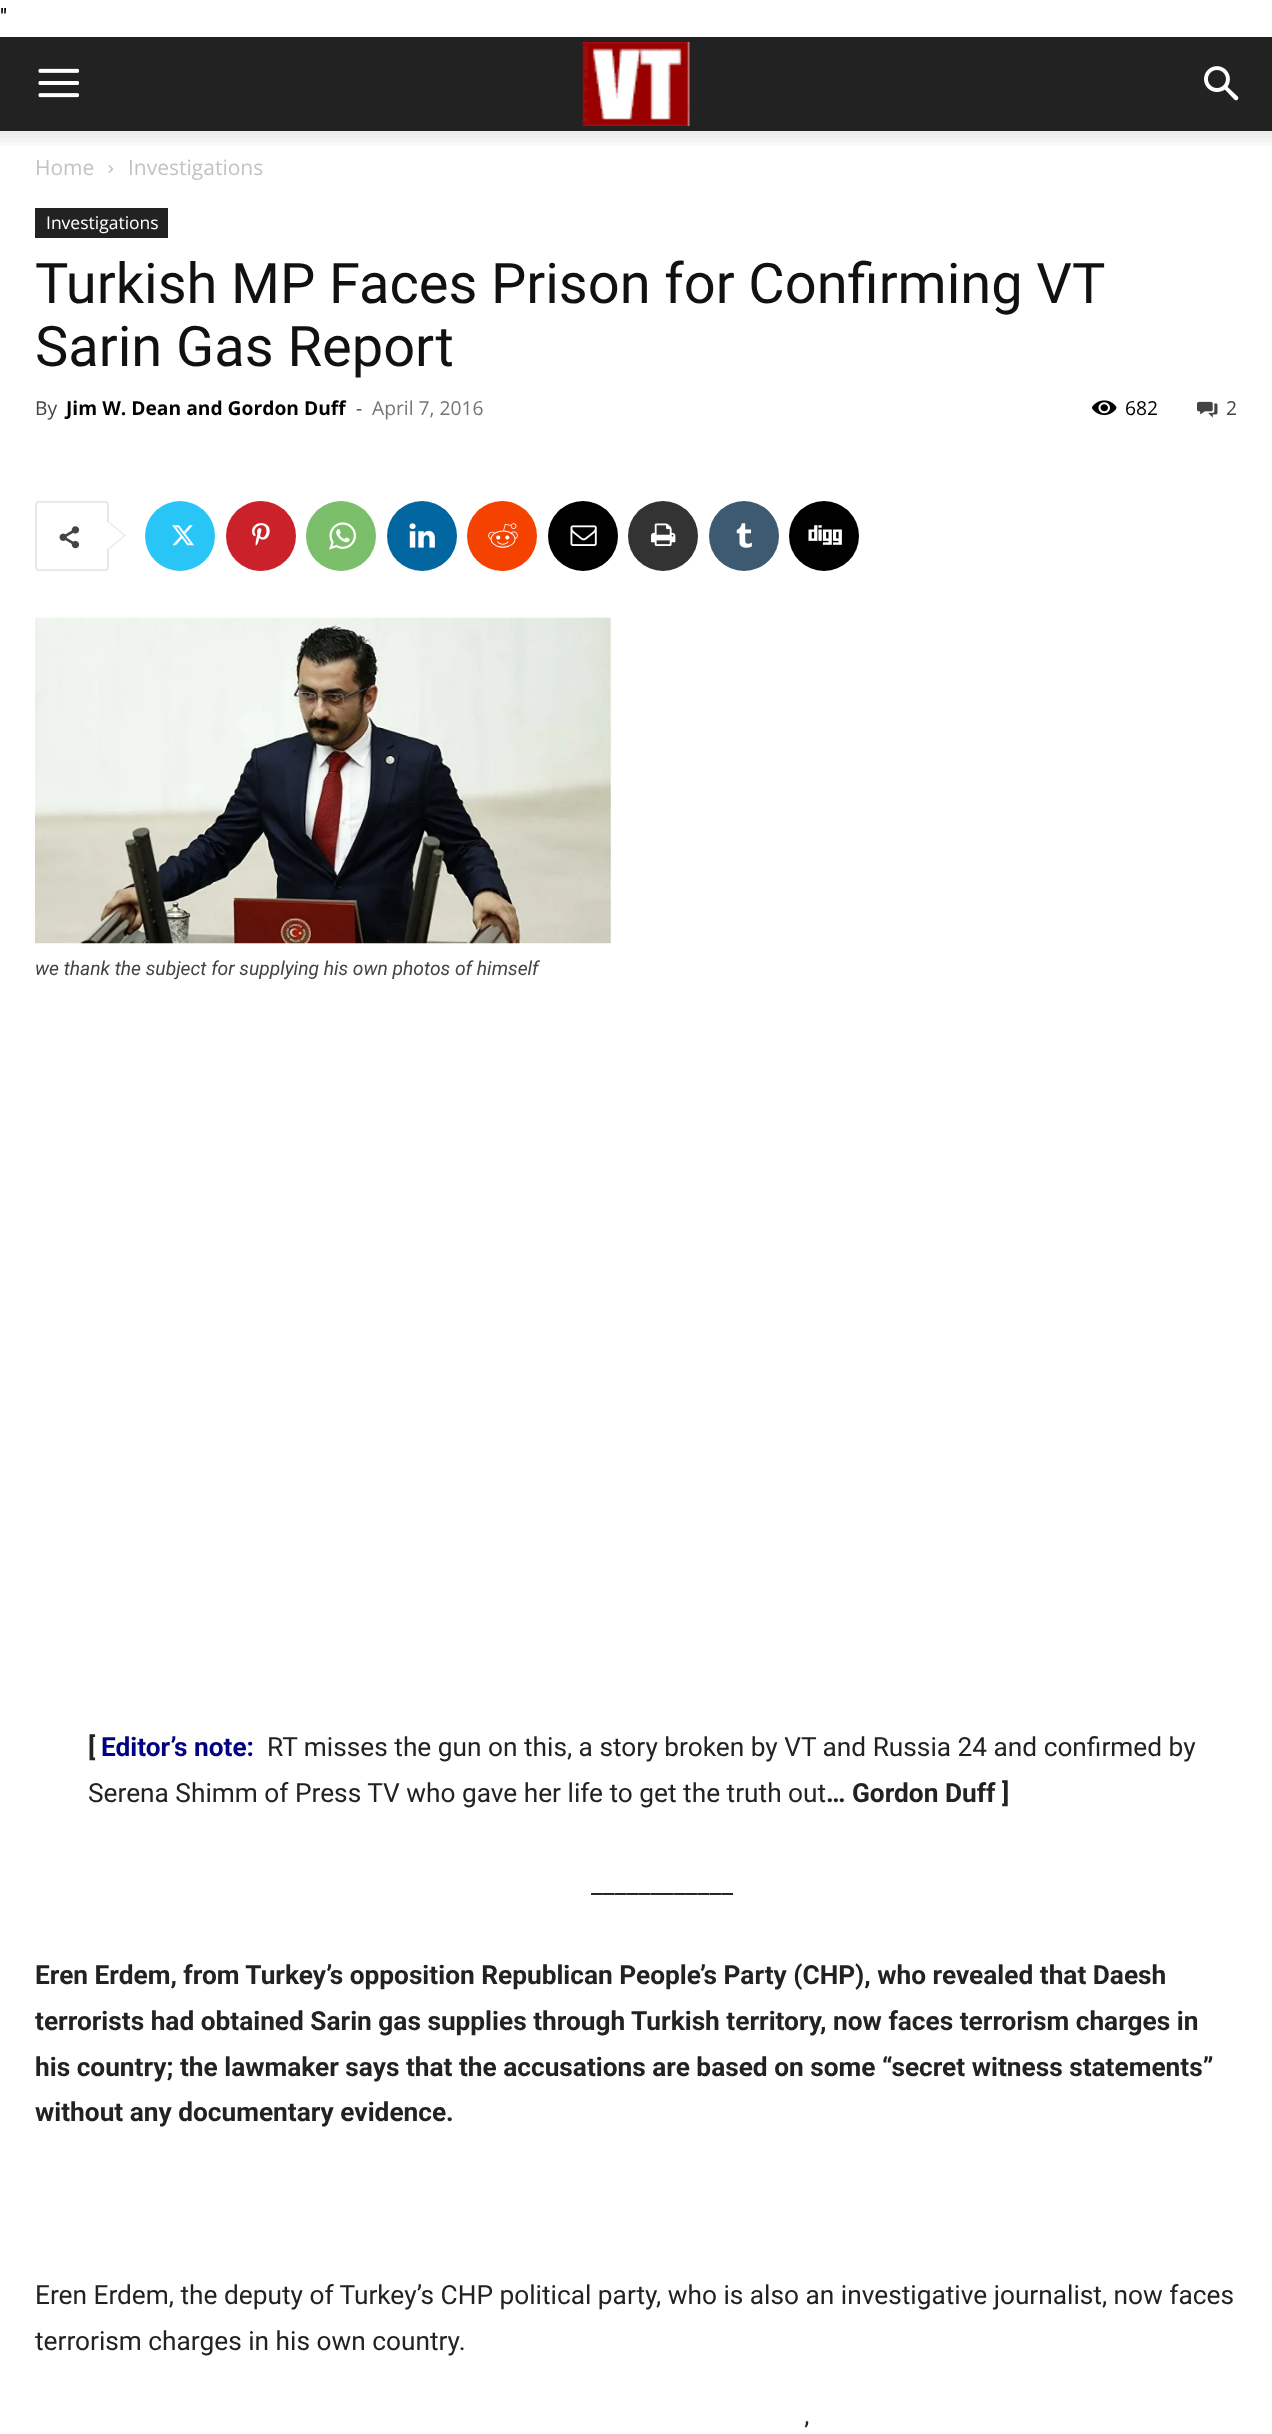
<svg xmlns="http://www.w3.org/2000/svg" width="1272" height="2434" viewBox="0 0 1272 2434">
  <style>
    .t1 { font: 24px Roboto; fill: #000; }
    .t2 { font: 21px Open Sans; fill: #c3c3c3; }
    .t3 { font: 17.5px Open Sans; fill: #fff; }
    .t4 { font: 56px Roboto; fill: #111; }
    .t5 { font: 19.25px Open Sans; fill: #444; }
    .t6 { font: bold 19.25px Open Sans; fill: #000; }
    .t7 { font: 19.25px Open Sans; fill: #767676; }
    .t8 { font: 19.25px Open Sans; fill: #000; }
    .t9 { font: italic 19.25px Roboto; fill: #444; }
    .t10 { font: bold 26.25px Roboto; fill: #222; }
    .t11 { font: bold 26.25px Roboto; fill: #000080; }
    .t12 { font: 26.25px Roboto; fill: #222; }
  </style>
  <rect width="100%" height="100%" fill="#fff"/>
  <text x="0" y="26" class="t1">''</text>
  <rect x="0" y="37" width="1272" height="94" fill="#222"/>
  <image x="38" y="68" width="41" height="30" href="images/1.png"/>
  <image x="582" y="42" width="108" height="84" href="images/2.png"/>
  <image x="1204" y="66" width="35" height="35" href="images/3.png"/>
  <image x="0" y="131" width="1272" height="15" href="images/4.png"/>
  <text x="35" y="175" class="t2">Home</text>
  <image x="108" y="165" width="6" height="8" href="images/5.png"/>
  <text x="128" y="175" class="t2">Investigations</text>
  <rect x="35" y="208" width="133" height="30" fill="#222"/>
  <text x="46" y="229" class="t3">Investigations</text>
  <text x="35" y="303" word-spacing="-0.25" class="t4">Turkish MP Faces Prison for Confirming VT</text>
  <text x="35" y="366" class="t4">Sarin Gas Report</text>
  <text x="35" y="415" class="t5">By</text>
  <text x="66" y="415" class="t6">Jim W. Dean and Gordon Duff</text>
  <text x="356" y="415" class="t5">-</text>
  <text x="372" y="415" class="t7">April 7, 2016</text>
  <image x="1092" y="400" width="25" height="16" href="images/6.png"/>
  <text x="1125" y="415" class="t8">682</text>
  <image x="1197" y="401" width="21" height="17" href="images/7.png"/>
  <text x="1226" y="415" class="t5">2</text>
  <rect x="36" y="502" width="72" height="68" rx="3" fill="none" stroke="#e9e9e9" stroke-width="2"/>
  <path d="M107 551V520L126 535.5Z" fill="#e9e9e9"/>
  <image x="59" y="526" width="21" height="23" href="images/8.png"/>
  <path d="M107 549.5V521.5L124 535.5Z" fill="#fff"/>
  <circle cx="180" cy="536" r="35" fill="#29c5f6"/>
  <image x="172" y="525" width="22" height="21" href="images/9.png"/>
  <circle cx="261" cy="536" r="35" fill="#ca212a"/>
  <image x="252" y="523" width="18" height="23" href="images/10.png"/>
  <circle cx="341" cy="536" r="35" fill="#7bbf6a"/>
  <image x="329" y="522" width="27" height="28" href="images/11.png"/>
  <circle cx="422" cy="536" r="35" fill="#0266a0"/>
  <image x="409" y="523" width="26" height="25" href="images/12.png"/>
  <circle cx="502" cy="536" r="35" fill="#f54200"/>
  <image x="488" y="523" width="30" height="25" href="images/13.png"/>
  <circle cx="583" cy="536" r="35" fill="#000"/>
  <image x="570" y="525" width="27" height="21" href="images/14.png"/>
  <circle cx="663" cy="536" r="35" fill="#333"/>
  <image x="651" y="523" width="25" height="23" href="images/15.png"/>
  <circle cx="744" cy="536" r="35" fill="#3e5a70"/>
  <image x="736" y="523" width="16" height="25" href="images/16.png"/>
  <circle cx="824" cy="536" r="35" fill="#000"/>
  <image x="808" y="525" width="34" height="20" href="images/17.png"/>
  <image x="35" y="617" width="576" height="327" href="images/18.png"/>
  <text x="35" y="975" class="t9">we thank the subject for supplying his own photos of himself</text>
  <text x="88" y="1756" class="t10">[</text>
  <text x="101" y="1756" class="t11">Editor’s note:</text>
  <text x="267" y="1756" class="t12">RT misses the gun on this, a story broken by VT and Russia 24 and confirmed by</text>
  <text x="88" y="1802" class="t12">Serena Shimm of Press TV who gave her life to get the truth out</text>
  <text x="826" y="1802" class="t10">… Gordon Duff ]</text>
  <text x="591" y="1893" class="t12">____________</text>
  <text x="35" y="1984" class="t10">Eren Erdem, from Turkey’s opposition Republican People’s Party (CHP), who revealed that Daesh</text>
  <text x="35" y="2030" class="t10">terrorists had obtained Sarin gas supplies through Turkish territory, now faces terrorism charges in</text>
  <text x="35" y="2076" class="t10">his country; the lawmaker says that the accusations are based on some “secret witness statements”</text>
  <text x="35" y="2121" class="t10">without any documentary evidence.</text>
  <text x="35" y="2304" class="t12">Eren Erdem, the deputy of Turkey’s CHP political party, who is also an investigative journalist, now faces</text>
  <text x="35" y="2350" class="t12">terrorism charges in his own country.</text>
  <text x="804" y="2441" class="t12">’</text>
</svg>
